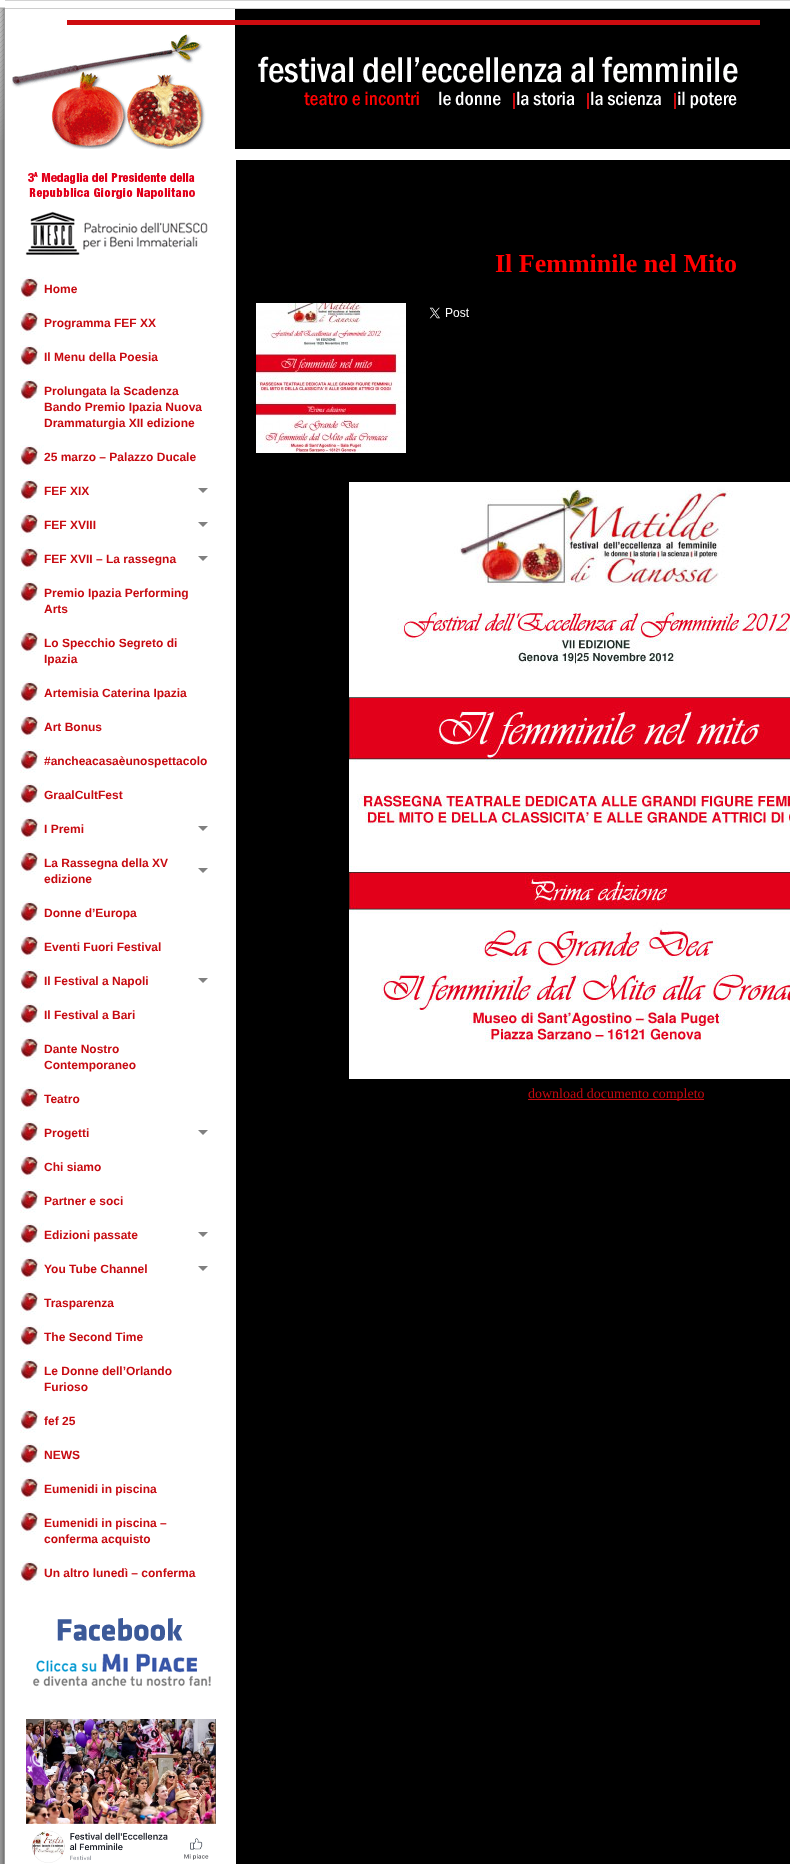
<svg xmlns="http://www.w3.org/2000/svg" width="790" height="1864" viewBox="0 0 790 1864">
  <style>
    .t1 { font: bold 12px Liberation Sans; fill: #c70a10; }
    .t2 { font: bold 26px Liberation Serif; fill: #f00; }
    .t3 { font: 14px Liberation Serif; fill: #c70a10; }
  </style>
  <rect width="100%" height="100%" fill="#000"/>
  <image x="0" y="140" width="5" height="1724" href="images/1.png"/>
  <image x="0" y="0" width="5" height="140" href="images/2.png"/>
  <rect x="5" y="149" width="785" height="11" fill="#fff"/>
  <image x="5" y="0" width="785" height="149" href="images/3.png"/>
  <image x="5" y="9" width="755" height="140" href="images/4.png"/>
  <rect x="5" y="160" width="231" height="1704" fill="#fff"/>
  <image x="28" y="172" width="167" height="27" href="images/5.png"/>
  <image x="25" y="211" width="183" height="44" href="images/6.png"/>
  <image x="20" y="277" width="24" height="24" href="images/7.png"/>
  <text x="44" y="293" class="t1">Home</text>
  <image x="20" y="311" width="24" height="24" href="images/7.png"/>
  <text x="44" y="327" class="t1">Programma FEF XX</text>
  <image x="20" y="345" width="24" height="24" href="images/7.png"/>
  <text x="44" y="361" class="t1">Il Menu della Poesia</text>
  <image x="20" y="379" width="24" height="24" href="images/7.png"/>
  <text x="44" y="395" class="t1">Prolungata la Scadenza</text>
  <text x="44" y="411" class="t1">Bando Premio Ipazia Nuova</text>
  <text x="44" y="427" class="t1">Drammaturgia XII edizione</text>
  <image x="20" y="445" width="24" height="24" href="images/7.png"/>
  <text x="44" y="461" class="t1">25 marzo – Palazzo Ducale</text>
  <image x="20" y="479" width="24" height="24" href="images/7.png"/>
  <text x="44" y="495" class="t1">FEF XIX</text>
  <path d="M198 488H208L203 493Z" fill="#808080"/>
  <image x="20" y="513" width="24" height="24" href="images/7.png"/>
  <text x="44" y="529" class="t1">FEF XVIII</text>
  <path d="M198 522H208L203 527Z" fill="#808080"/>
  <image x="20" y="547" width="24" height="24" href="images/7.png"/>
  <text x="44" y="563" class="t1">FEF XVII – La rassegna</text>
  <path d="M198 556H208L203 561Z" fill="#808080"/>
  <image x="20" y="581" width="24" height="24" href="images/7.png"/>
  <text x="44" y="597" class="t1">Premio Ipazia Performing</text>
  <text x="44" y="613" class="t1">Arts</text>
  <image x="20" y="631" width="24" height="24" href="images/7.png"/>
  <text x="44" y="647" class="t1">Lo Specchio Segreto di</text>
  <text x="44" y="663" class="t1">Ipazia</text>
  <image x="20" y="681" width="24" height="24" href="images/7.png"/>
  <text x="44" y="697" class="t1">Artemisia Caterina Ipazia</text>
  <image x="20" y="715" width="24" height="24" href="images/7.png"/>
  <text x="44" y="731" class="t1">Art Bonus</text>
  <image x="20" y="749" width="24" height="24" href="images/7.png"/>
  <text x="44" y="765" class="t1">#ancheacasaèunospettacolo</text>
  <image x="20" y="783" width="24" height="24" href="images/7.png"/>
  <text x="44" y="799" class="t1">GraalCultFest</text>
  <image x="20" y="817" width="24" height="24" href="images/7.png"/>
  <text x="44" y="833" class="t1">I Premi</text>
  <path d="M198 826H208L203 831Z" fill="#808080"/>
  <image x="20" y="851" width="24" height="24" href="images/7.png"/>
  <text x="44" y="867" class="t1">La Rassegna della XV</text>
  <path d="M198 868H208L203 873Z" fill="#808080"/>
  <text x="44" y="883" class="t1">edizione</text>
  <image x="20" y="901" width="24" height="24" href="images/7.png"/>
  <text x="44" y="917" class="t1">Donne d’Europa</text>
  <image x="20" y="935" width="24" height="24" href="images/7.png"/>
  <text x="44" y="951" class="t1">Eventi Fuori Festival</text>
  <image x="20" y="969" width="24" height="24" href="images/7.png"/>
  <text x="44" y="985" class="t1">Il Festival a Napoli</text>
  <path d="M198 978H208L203 983Z" fill="#808080"/>
  <image x="20" y="1003" width="24" height="24" href="images/7.png"/>
  <text x="44" y="1019" class="t1">Il Festival a Bari</text>
  <image x="20" y="1037" width="24" height="24" href="images/7.png"/>
  <text x="44" y="1053" class="t1">Dante Nostro</text>
  <text x="44" y="1069" class="t1">Contemporaneo</text>
  <image x="20" y="1087" width="24" height="24" href="images/7.png"/>
  <text x="44" y="1103" class="t1">Teatro</text>
  <image x="20" y="1121" width="24" height="24" href="images/7.png"/>
  <text x="44" y="1137" class="t1">Progetti</text>
  <path d="M198 1130H208L203 1135Z" fill="#808080"/>
  <image x="20" y="1155" width="24" height="24" href="images/7.png"/>
  <text x="44" y="1171" class="t1">Chi siamo</text>
  <image x="20" y="1189" width="24" height="24" href="images/7.png"/>
  <text x="44" y="1205" class="t1">Partner e soci</text>
  <image x="20" y="1223" width="24" height="24" href="images/7.png"/>
  <text x="44" y="1239" class="t1">Edizioni passate</text>
  <path d="M198 1232H208L203 1237Z" fill="#808080"/>
  <image x="20" y="1257" width="24" height="24" href="images/7.png"/>
  <text x="44" y="1273" class="t1">You Tube Channel</text>
  <path d="M198 1266H208L203 1271Z" fill="#808080"/>
  <image x="20" y="1291" width="24" height="24" href="images/7.png"/>
  <text x="44" y="1307" class="t1">Trasparenza</text>
  <image x="20" y="1325" width="24" height="24" href="images/7.png"/>
  <text x="44" y="1341" class="t1">The Second Time</text>
  <image x="20" y="1359" width="24" height="24" href="images/7.png"/>
  <text x="44" y="1375" class="t1">Le Donne dell’Orlando</text>
  <text x="44" y="1391" class="t1">Furioso</text>
  <image x="20" y="1409" width="24" height="24" href="images/7.png"/>
  <text x="44" y="1425" class="t1">fef 25</text>
  <image x="20" y="1443" width="24" height="24" href="images/7.png"/>
  <text x="44" y="1459" class="t1">NEWS</text>
  <image x="20" y="1477" width="24" height="24" href="images/7.png"/>
  <text x="44" y="1493" class="t1">Eumenidi in piscina</text>
  <image x="20" y="1511" width="24" height="24" href="images/7.png"/>
  <text x="44" y="1527" class="t1">Eumenidi in piscina –</text>
  <text x="44" y="1543" class="t1">conferma acquisto</text>
  <image x="20" y="1561" width="24" height="24" href="images/7.png"/>
  <text x="44" y="1577" class="t1">Un altro lunedì – conferma</text>
  <image x="33" y="1618" width="178" height="69" href="images/8.png"/>
  <image x="26" y="1719" width="190" height="144" href="images/9.png"/>
  <text x="495" y="272" class="t2">Il Femminile nel Mito</text>
  <image x="256" y="303" width="150" height="150" href="images/10.png"/>
  <image x="429" y="307" width="40" height="12" href="images/11.png"/>
  <image x="349" y="482" width="441" height="597" href="images/12.png"/>
  <rect x="528" y="1099" width="176" height="1" fill="#c70a10"/>
  <text x="528" y="1098" class="t3">download documento completo</text>
</svg>
